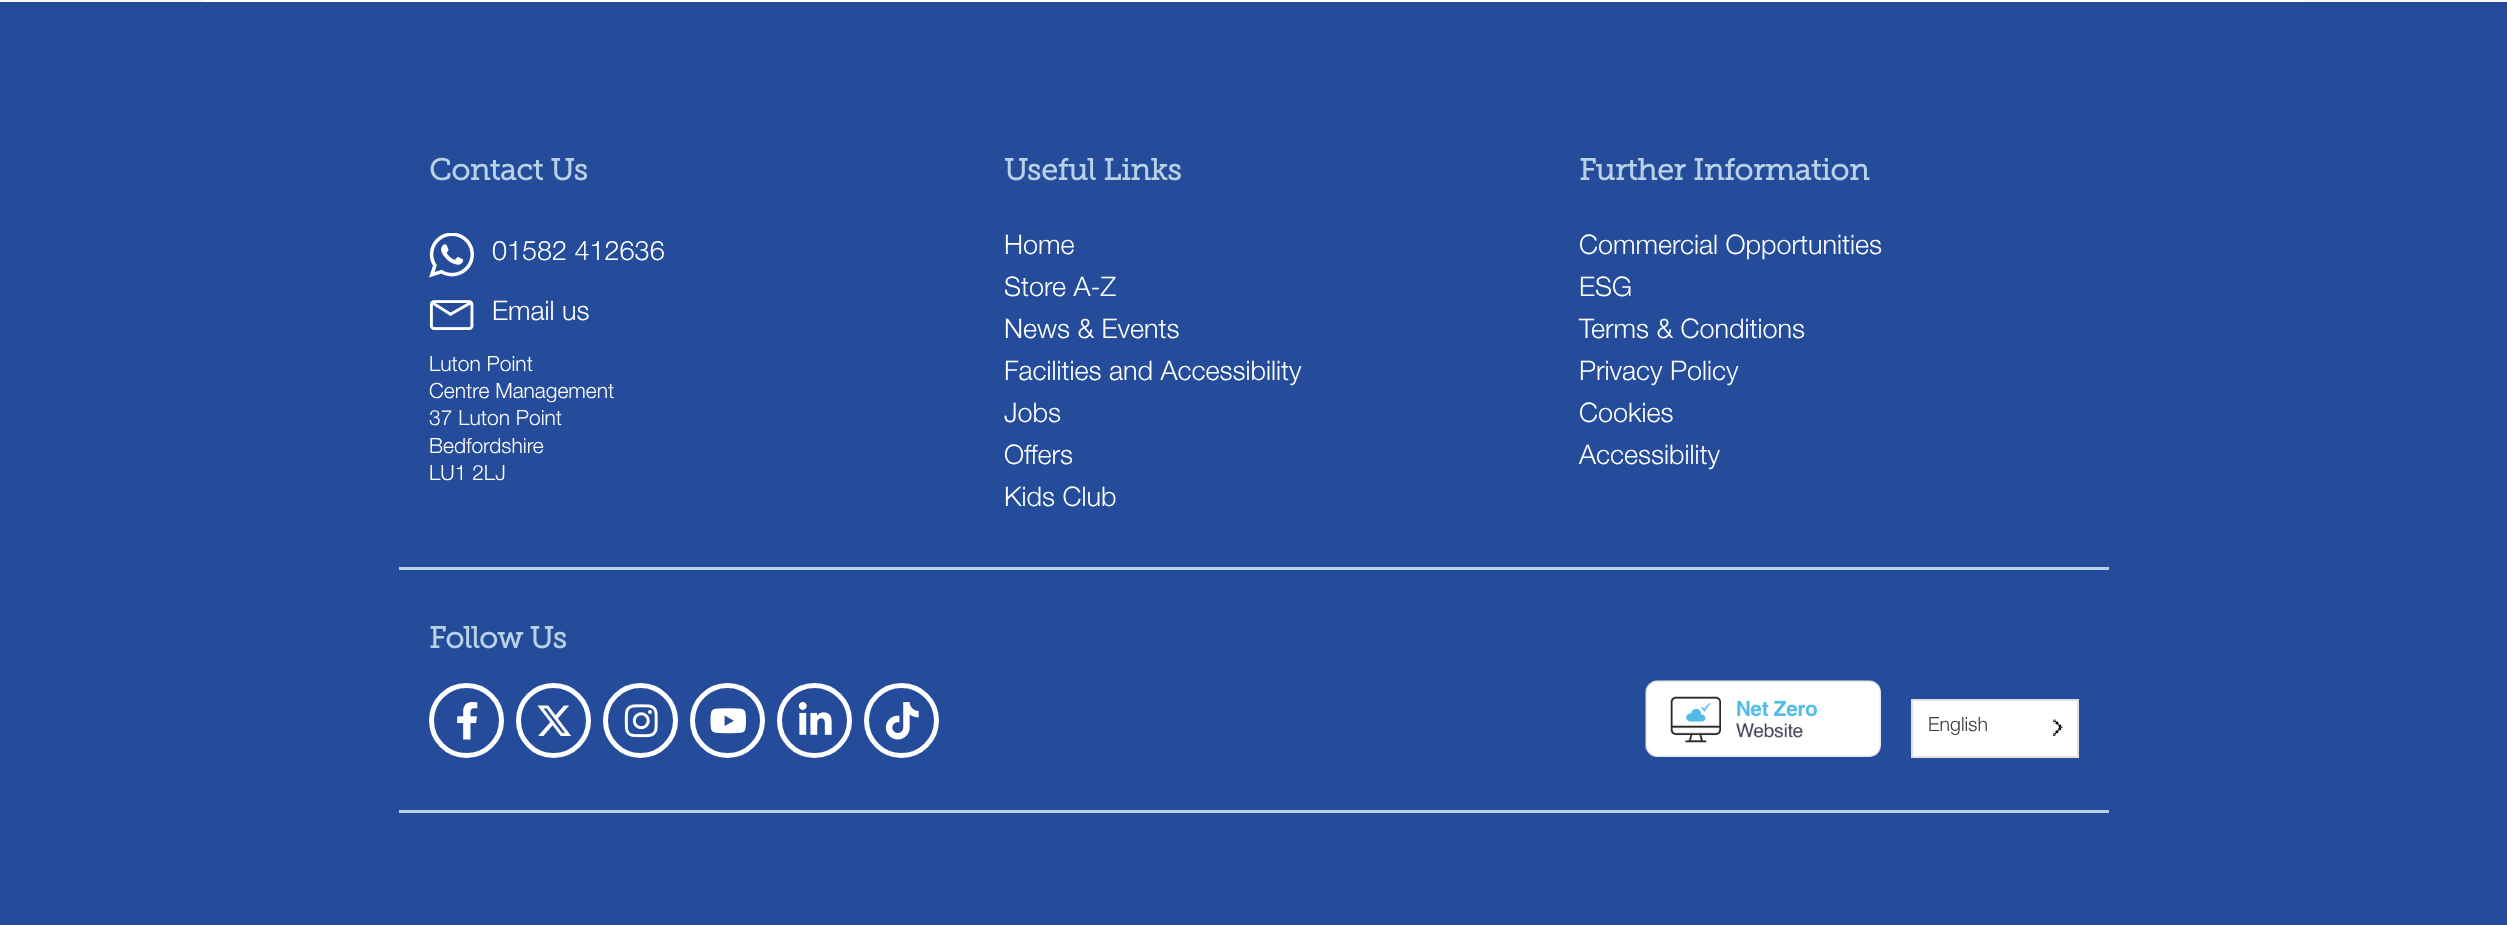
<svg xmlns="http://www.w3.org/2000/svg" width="2507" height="925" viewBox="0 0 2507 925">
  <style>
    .t1 { font: bold 30px Museo Slab; fill: #bad2e6; }
    .t2 { font: 300 27px Helvetica Neue; fill: #fff; }
    .t3 { font: 300 21px Helvetica Neue; fill: #fff; }
    .t4 { font: bold 30px Museo Slab; letter-spacing: -0.25px; fill: #bad2e6; }
    .t5 { font: 300 19.5px Helvetica Neue; fill: #3c3c3b; }
  </style>
  <rect width="100%" height="100%" fill="#f8f8f8"/>
  <rect x="204" y="0" width="2100" height="2" fill="#fff"/>
  <rect x="0" y="2" width="2507" height="923" fill="#254c9a"/>
  <text x="429" y="180" class="t1">Contact Us</text>
  <image x="429" y="233" width="45" height="45" href="images/1.png"/>
  <text x="492" y="260" class="t2">01582 412636</text>
  <image x="429" y="300" width="45" height="30" href="images/2.png"/>
  <text x="492" y="320" class="t2">Email us</text>
  <text x="429" y="371" class="t3">Luton Point</text>
  <text x="429" y="398" class="t3">Centre Management</text>
  <text x="429" y="425" class="t3">37 Luton Point</text>
  <text x="429" y="453" class="t3">Bedfordshire</text>
  <text x="429" y="480" class="t3">LU1 2LJ</text>
  <text x="1004" y="180" class="t1">Useful Links</text>
  <text x="1004" y="254" class="t2">Home</text>
  <text x="1004" y="296" class="t2">Store A-Z</text>
  <text x="1004" y="338" class="t2">News &amp; Events</text>
  <text x="1004" y="380" class="t2">Facilities and Accessibility</text>
  <text x="1004" y="422" class="t2">Jobs</text>
  <text x="1004" y="464" class="t2">Offers</text>
  <text x="1004" y="506" class="t2">Kids Club</text>
  <text x="1579" y="180" class="t1">Further Information</text>
  <text x="1579" y="254" class="t2">Commercial Opportunities</text>
  <text x="1579" y="296" class="t2">ESG</text>
  <text x="1579" y="338" class="t2">Terms &amp; Conditions</text>
  <text x="1579" y="380" class="t2">Privacy Policy</text>
  <text x="1579" y="422" class="t2">Cookies</text>
  <text x="1579" y="464" class="t2">Accessibility</text>
  <rect x="399" y="567" width="1710" height="3" fill="#bad2e6"/>
  <text x="429" y="648" class="t4">Follow Us</text>
  <circle cx="466.5" cy="720.5" r="35" fill="none" stroke="#fff" stroke-width="5"/>
  <image x="457" y="702" width="21" height="38" href="images/3.png"/>
  <circle cx="553.5" cy="720.5" r="35" fill="none" stroke="#fff" stroke-width="5"/>
  <image x="537" y="705" width="35" height="31" href="images/4.png"/>
  <circle cx="640.5" cy="720.5" r="35" fill="none" stroke="#fff" stroke-width="5"/>
  <image x="624" y="704" width="34" height="34" href="images/5.png"/>
  <circle cx="727.5" cy="720.5" r="35" fill="none" stroke="#fff" stroke-width="5"/>
  <image x="710" y="708" width="36" height="26" href="images/6.png"/>
  <circle cx="814.5" cy="720.5" r="35" fill="none" stroke="#fff" stroke-width="5"/>
  <image x="798" y="702" width="34" height="33" href="images/7.png"/>
  <circle cx="901.5" cy="720.5" r="35" fill="none" stroke="#fff" stroke-width="5"/>
  <image x="885" y="702" width="34" height="38" href="images/8.png"/>
  <image x="1645" y="680" width="236" height="77" href="images/9.png"/>
  <rect x="1912" y="700" width="166" height="57" fill="#fff" stroke="#e0e0e0" stroke-width="2"/>
  <text x="1928" y="731" class="t5">English</text>
  <image x="2053" y="719" width="10" height="17" href="images/10.png"/>
  <rect x="399" y="810" width="1710" height="3" fill="#bad2e6"/>
</svg>
